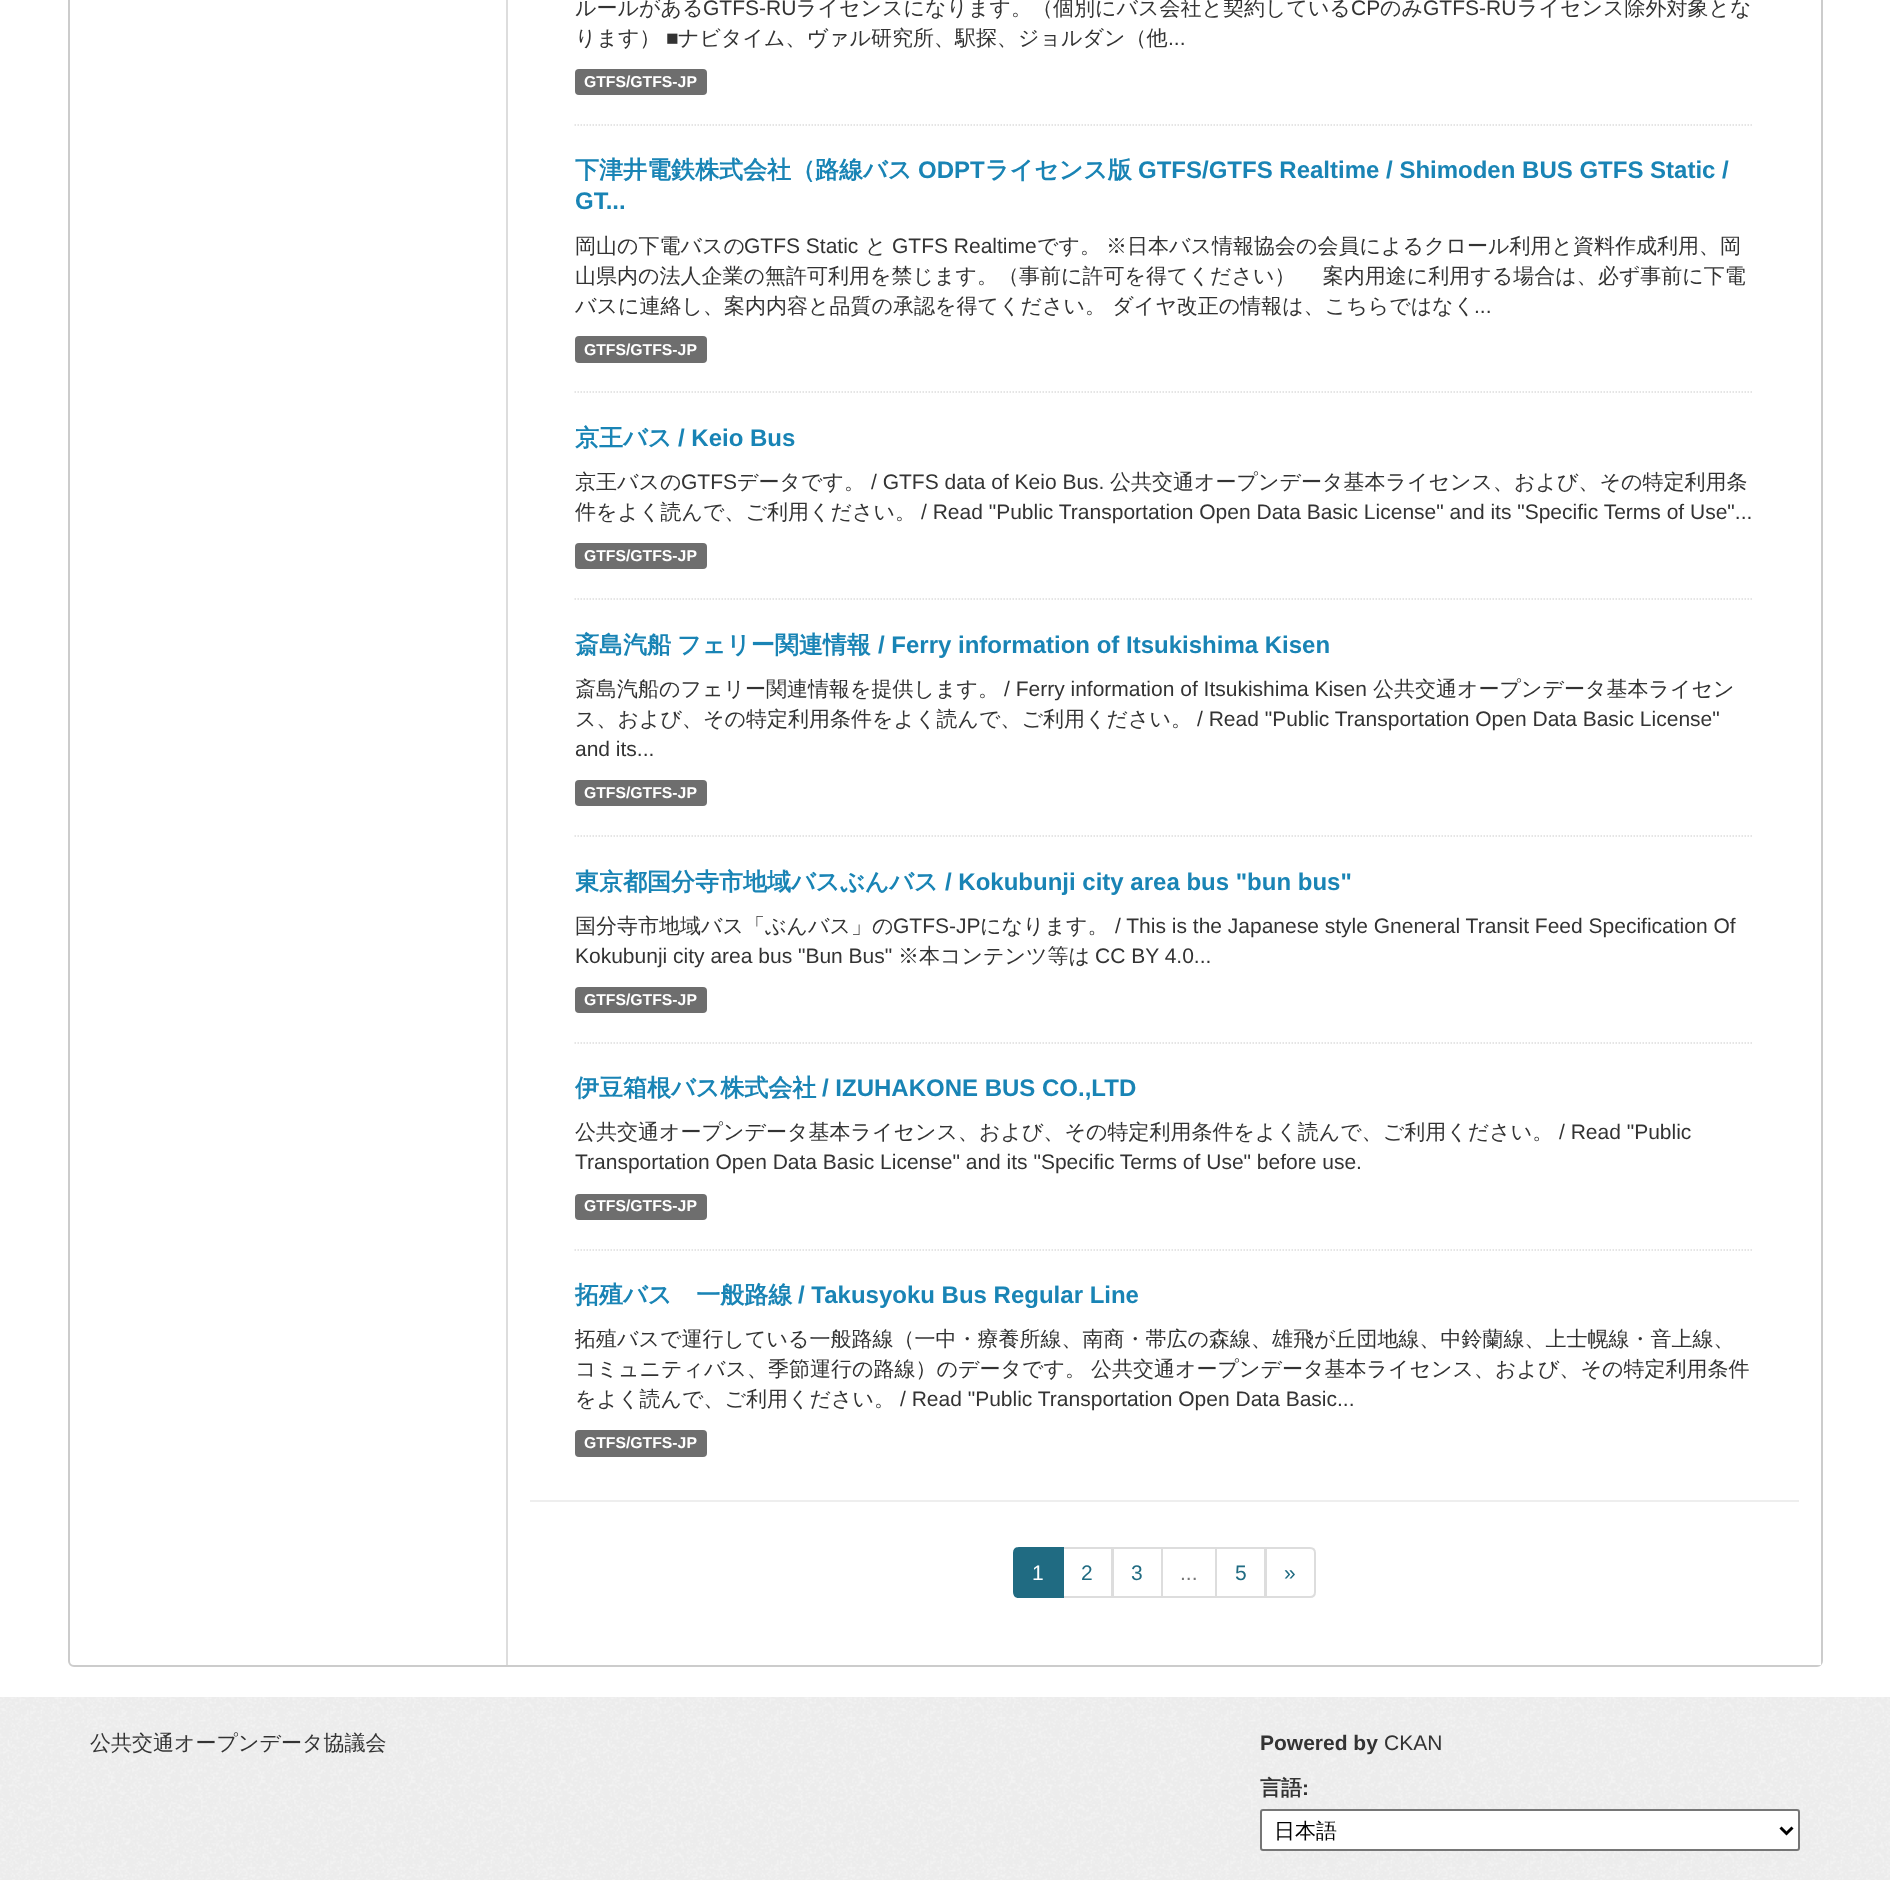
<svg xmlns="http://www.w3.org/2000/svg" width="1890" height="1880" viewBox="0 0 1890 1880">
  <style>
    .t1 { font: 500 21px WenQuanYi Zen Hei; fill: #333; }
    .t2 { font: 21px Liberation Sans; fill: #333; }
    .t3 { font: bold 15.75px Liberation Sans; fill: #fff; }
    .t4 { font: bold 24px WenQuanYi Zen Hei; fill: #1984b5; }
    .t5 { font: bold 24px Liberation Sans; fill: #1984b5; }
    .t6 { font: 21px Liberation Sans; fill: #fff; }
    .t7 { font: 21px Liberation Sans; fill: #206b82; }
    .t8 { font: 21px Liberation Sans; fill: #777; }
    .t9 { font: bold 21px Liberation Sans; fill: #333; }
    .t10 { font: bold 21px WenQuanYi Zen Hei; fill: #333; }
    .t11 { font: 500 21px WenQuanYi Zen Hei; fill: #000; }
  </style>
  <rect width="100%" height="100%" fill="#f4f4f4"/>
  <rect x="0" y="0" width="1890" height="1697" fill="#fff"/>
  <rect x="69" y="-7" width="1753" height="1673" rx="5" fill="none" stroke="#ccc" stroke-width="2"/>
  <rect x="506" y="0" width="2" height="1665" fill="#ddd"/>
  <rect x="1817" y="1661" width="4" height="4" fill="#fff"/>
  <path d="M574.5 125H1753.5" fill="none" stroke="#ddd" stroke-width="1.5" stroke-dasharray="1.5 1.5"/>
  <text x="575" y="15" class="t1">ルールがある</text>
  <text x="703" y="15" class="t2">GTFS-RU</text>
  <text x="796" y="15" class="t1">ライセンスになります。（個別にバス会社と契約している</text>
  <text x="1351" y="15" class="t2">CP</text>
  <text x="1380" y="15" class="t1">のみ</text>
  <text x="1423" y="15" class="t2">GTFS-RU</text>
  <text x="1517" y="15" class="t1">ライセンス除外対象とな</text>
  <text x="575" y="45" class="t1">ります）</text>
  <text x="666" y="45" class="t2">■</text>
  <text x="678" y="45" class="t1">ナビタイム、ヴァル研究所、駅探、ジョルダン（他</text>
  <text x="1168" y="45" class="t2">...</text>
  <rect x="575" y="69" width="132" height="26" rx="4" fill="#6e6e6e"/>
  <text x="584" y="87" class="t3">GTFS/GTFS-JP</text>
  <path d="M574.5 392H1753.5" fill="none" stroke="#ddd" stroke-width="1.5" stroke-dasharray="1.5 1.5"/>
  <text x="575" y="178" class="t4">下津井電鉄株式会社（路線バス</text>
  <text x="918" y="178" class="t5">ODPT</text>
  <text x="985" y="178" class="t4">ライセンス版</text>
  <text x="1138" y="178" class="t5">GTFS/GTFS Realtime / Shimoden BUS GTFS Static /</text>
  <text x="575" y="209" class="t5">GT...</text>
  <text x="575" y="253" class="t1">岡山の下電バスの</text>
  <text x="744" y="253" class="t2">GTFS Static</text>
  <text x="865" y="253" class="t1">と</text>
  <text x="892" y="253" class="t2">GTFS Realtime</text>
  <text x="1037" y="253" class="t1">です。</text>
  <text x="1106" y="253" class="t1">※日本バス情報協会の会員によるクロール利用と資料作成利用、岡</text>
  <text x="575" y="283" class="t1">山県内の法人企業の無許可利用を禁じます。（事前に許可を得てください）　 案内用途に利用する場合は、必ず事前に下電</text>
  <text x="575" y="313" class="t1">バスに連絡し、案内内容と品質の承認を得てください。 ダイヤ改正の情報は、こちらではなく</text>
  <text x="1474" y="313" class="t2">...</text>
  <rect x="575" y="336" width="132" height="27" rx="4" fill="#6e6e6e"/>
  <text x="584" y="355" class="t3">GTFS/GTFS-JP</text>
  <path d="M574.5 599H1753.5" fill="none" stroke="#ddd" stroke-width="1.5" stroke-dasharray="1.5 1.5"/>
  <text x="575" y="446" class="t4">京王バス</text>
  <text x="678" y="446" class="t5">/ Keio Bus</text>
  <text x="575" y="489" class="t1">京王バスの</text>
  <text x="681" y="489" class="t2">GTFS</text>
  <text x="737" y="489" class="t1">データです。</text>
  <text x="871" y="489" class="t2">/ GTFS data of Keio Bus.</text>
  <text x="1110" y="489" class="t1">公共交通オープンデータ基本ライセンス、および、その特定利用条</text>
  <text x="575" y="519" class="t1">件をよく読んで、ご利用ください。</text>
  <text x="921" y="519" class="t2">/ Read "Public Transportation Open Data Basic License" and its "Specific Terms of Use"...</text>
  <rect x="575" y="543" width="132" height="26" rx="4" fill="#6e6e6e"/>
  <text x="584" y="561" class="t3">GTFS/GTFS-JP</text>
  <path d="M574.5 836H1753.5" fill="none" stroke="#ddd" stroke-width="1.5" stroke-dasharray="1.5 1.5"/>
  <text x="575" y="653" class="t4">斎島汽船</text>
  <text x="677" y="653" class="t4">フェリー関連情報</text>
  <text x="878" y="653" class="t5">/ Ferry information of Itsukishima Kisen</text>
  <text x="575" y="696" class="t1">斎島汽船のフェリー関連情報を提供します。</text>
  <text x="1004" y="696" class="t2">/ Ferry information of Itsukishima Kisen</text>
  <text x="1373" y="696" class="t1">公共交通オープンデータ基本ライセン</text>
  <text x="575" y="726" class="t1">ス、および、その特定利用条件をよく読んで、ご利用ください。</text>
  <text x="1197" y="726" class="t2">/ Read "Public Transportation Open Data Basic License"</text>
  <text x="575" y="756" class="t2">and its...</text>
  <rect x="575" y="780" width="132" height="26" rx="4" fill="#6e6e6e"/>
  <text x="584" y="798" class="t3">GTFS/GTFS-JP</text>
  <path d="M574.5 1043H1753.5" fill="none" stroke="#ddd" stroke-width="1.5" stroke-dasharray="1.5 1.5"/>
  <text x="575" y="890" class="t4">東京都国分寺市地域バスぶんバス</text>
  <text x="945" y="890" class="t5">/ Kokubunji city area bus "bun bus"</text>
  <text x="575" y="933" class="t1">国分寺市地域バス「ぶんバス」の</text>
  <text x="893" y="933" class="t2">GTFS-JP</text>
  <text x="980" y="933" class="t1">になります。</text>
  <text x="1115" y="933" class="t2">/ This is the Japanese style Gneneral Transit Feed Specification Of</text>
  <text x="575" y="963" class="t2">Kokubunji city area bus "Bun Bus"</text>
  <text x="898" y="963" class="t1">※本コンテンツ等は</text>
  <text x="1095" y="963" class="t2">CC BY 4.0...</text>
  <rect x="575" y="987" width="132" height="26" rx="4" fill="#6e6e6e"/>
  <text x="584" y="1005" class="t3">GTFS/GTFS-JP</text>
  <path d="M574.5 1250H1753.5" fill="none" stroke="#ddd" stroke-width="1.5" stroke-dasharray="1.5 1.5"/>
  <text x="575" y="1096" class="t4">伊豆箱根バス株式会社</text>
  <text x="822" y="1096" class="t5">/ IZUHAKONE BUS CO.,LTD</text>
  <text x="575" y="1139" class="t1">公共交通オープンデータ基本ライセンス、および、その特定利用条件をよく読んで、ご利用ください。</text>
  <text x="1559" y="1139" class="t2">/ Read "Public</text>
  <text x="575" y="1169" class="t2">Transportation Open Data Basic License" and its "Specific Terms of Use" before use.</text>
  <rect x="575" y="1194" width="132" height="26" rx="4" fill="#6e6e6e"/>
  <text x="584" y="1211" class="t3">GTFS/GTFS-JP</text>
  <text x="575" y="1303" class="t4">拓殖バス　一般路線</text>
  <text x="798" y="1303" class="t5">/ Takusyoku Bus Regular Line</text>
  <text x="575" y="1346" class="t1">拓殖バスで運行している一般路線（一中・療養所線、南商・帯広の森線、雄飛が丘団地線、中鈴蘭線、上士幌線・音上線、</text>
  <text x="575" y="1376" class="t1">コミュニティバス、季節運行の路線）のデータです。</text>
  <text x="1091" y="1376" class="t1">公共交通オープンデータ基本ライセンス、および、その特定利用条件</text>
  <text x="575" y="1406" class="t1">をよく読んで、ご利用ください。</text>
  <text x="900" y="1406" class="t2">/ Read "Public Transportation Open Data Basic...</text>
  <rect x="575" y="1430" width="132" height="27" rx="4" fill="#6e6e6e"/>
  <text x="584" y="1448" class="t3">GTFS/GTFS-JP</text>
  <rect x="530" y="1500" width="1269" height="2" fill="#eee"/>
  <rect x="1063" y="1548" width="49" height="49" fill="none" stroke="#ddd" stroke-width="2"/>
  <path d="M1019 1548H1063V1597H1019C1016 1597 1014 1595 1014 1592V1553C1014 1550 1016 1548 1019 1548Z" fill="#206b82" stroke="#206b82" stroke-width="2"/>
  <text x="1032" y="1580" class="t6">1</text>
  <text x="1081" y="1580" class="t7">2</text>
  <rect x="1113" y="1548" width="49" height="49" fill="none" stroke="#ddd" stroke-width="2"/>
  <text x="1131" y="1580" class="t7">3</text>
  <rect x="1162" y="1548" width="54" height="49" fill="none" stroke="#ddd" stroke-width="2"/>
  <text x="1180" y="1580" class="t8">...</text>
  <rect x="1216" y="1548" width="49" height="49" fill="none" stroke="#ddd" stroke-width="2"/>
  <text x="1235" y="1580" class="t7">5</text>
  <path d="M1266 1548H1310C1313 1548 1315 1550 1315 1553V1592C1315 1595 1313 1597 1310 1597H1266Z" fill="#fff" stroke="#ddd" stroke-width="2"/>
  <text x="1284" y="1580" class="t7">»</text>
  <image x="0" y="1697" width="1890" height="183" href="images/1.png"/>
  <text x="90" y="1750" class="t1">公共交通オープンデータ協議会</text>
  <text x="1260" y="1750" class="t9">Powered by</text>
  <text x="1384" y="1750" class="t2">CKAN</text>
  <text x="1260" y="1795" class="t10">言語</text>
  <text x="1302" y="1795" class="t9">:</text>
  <rect x="1261" y="1810" width="538" height="40" rx="2" fill="#fff" stroke="#767676" stroke-width="2"/>
  <path d="M1780.5 1827.5L1786.5 1833.5L1792.5 1827.5" fill="none" stroke="#000" stroke-width="3"/>
  <text x="1274" y="1838" class="t11">日本語</text>
</svg>
